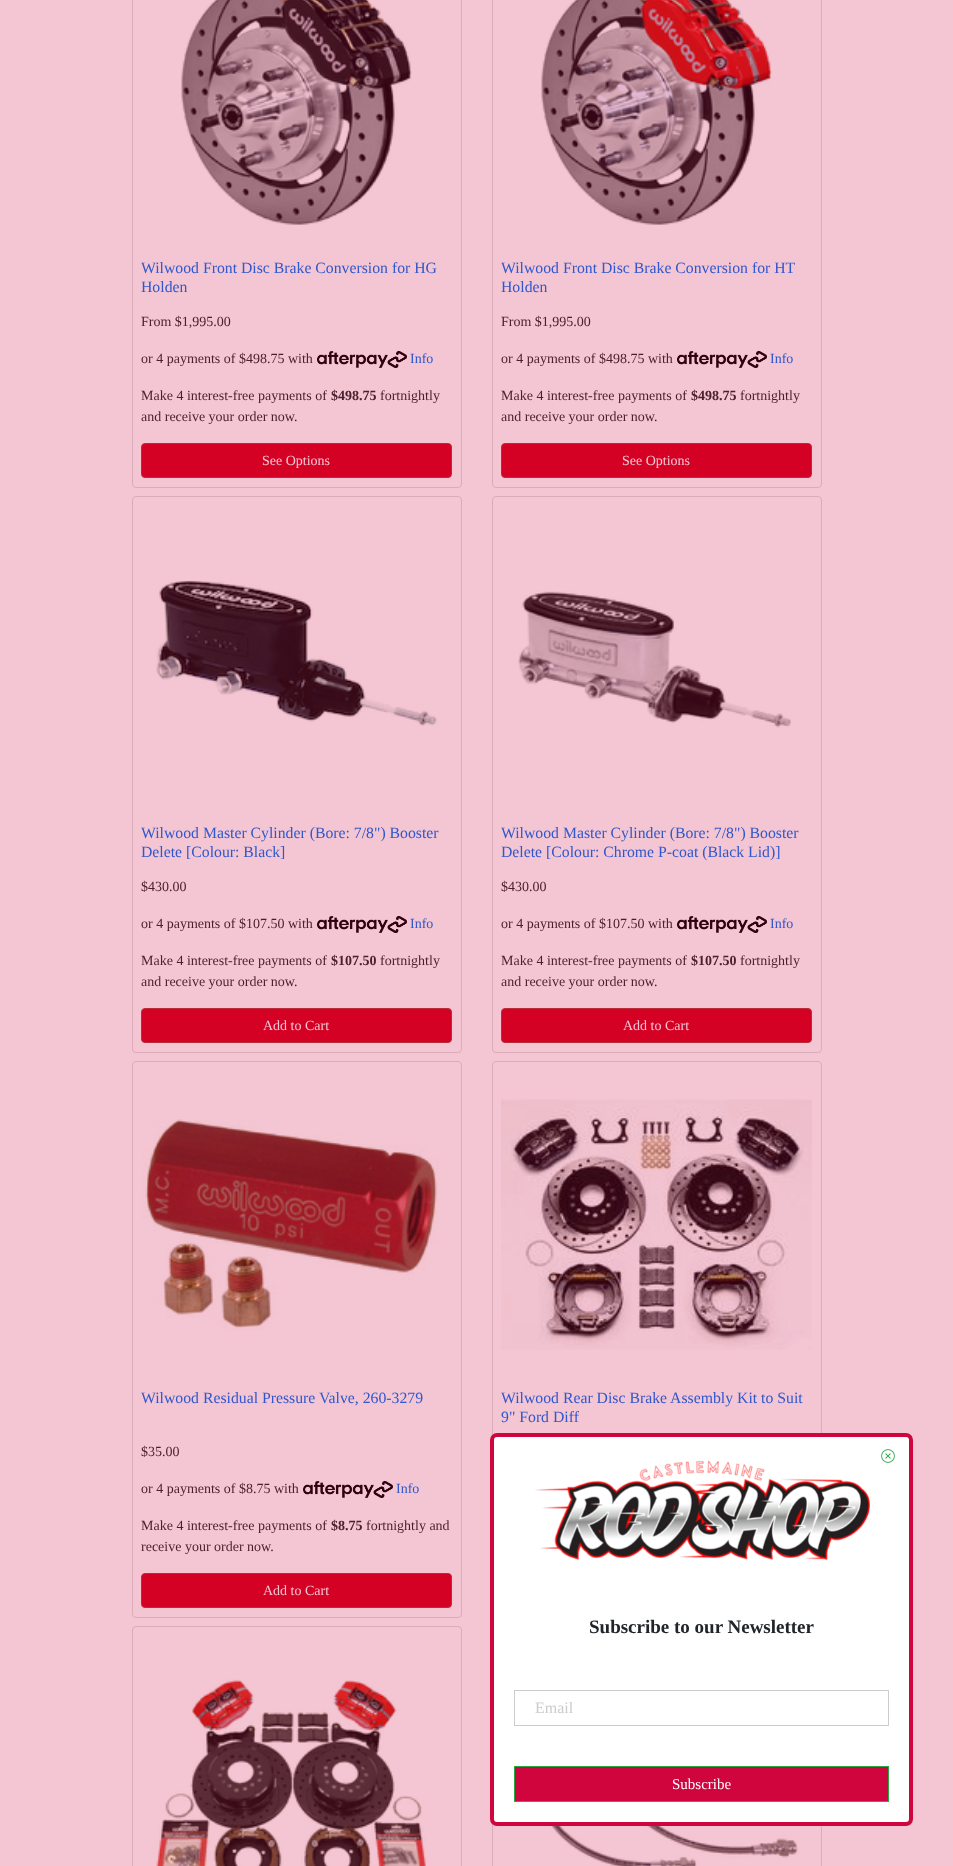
<svg xmlns="http://www.w3.org/2000/svg" width="953" height="1866" viewBox="0 0 953 1866">
  <style>
    .t1 { font: 15.75px Liberation Serif; fill: #3057cb; }
    .t2 { font: 14px Liberation Serif; fill: #491e2e; }
    .t3 { font: 14px Liberation Serif; fill: #3057cb; }
    .t4 { font: bold 14px Liberation Serif; fill: #491e2e; }
    .t5 { font: 14px Liberation Serif; fill: #f4c6d3; }
    .t6 { font: bold 19px Liberation Serif; fill: #212529; }
    .t7 { font: 16px Liberation Serif; fill: #ccc; }
    .t8 { font: 15px Liberation Serif; fill: #fff; }
  </style>
  <rect width="100%" height="100%" fill="#f4c6d3"/>
  <rect x="132.5" y="-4.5" width="329" height="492" rx="3.5" fill="none" stroke="#daabb8"/>
  <image x="181" y="0" width="231" height="225" href="images/1.png"/>
  <text x="141" y="273" class="t1">Wilwood Front Disc Brake Conversion for HG</text>
  <text x="141" y="292" class="t1">Holden</text>
  <text x="141" y="326" class="t2">From $1,995.00</text>
  <text x="141" y="363" class="t2">or 4 payments of $498.75 with</text>
  <image x="317" y="351" width="90" height="17" href="images/2.png"/>
  <text x="410" y="363" class="t3">Info</text>
  <text x="141" y="400" class="t2">Make 4 interest-free payments of</text>
  <text x="331" y="400" class="t4">$498.75</text>
  <text x="380" y="400" class="t2">fortnightly</text>
  <text x="141" y="421" class="t2">and receive your order now.</text>
  <rect x="141.5" y="443.5" width="310" height="34" rx="3.5" fill="#d50124" stroke="#bb2c39"/>
  <text x="262" y="465" class="t5">See Options</text>
  <rect x="492.5" y="-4.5" width="329" height="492" rx="3.5" fill="none" stroke="#daabb8"/>
  <image x="541" y="0" width="231" height="225" href="images/3.png"/>
  <text x="501" y="273" class="t1">Wilwood Front Disc Brake Conversion for HT</text>
  <text x="501" y="292" class="t1">Holden</text>
  <text x="501" y="326" class="t2">From $1,995.00</text>
  <text x="501" y="363" class="t2">or 4 payments of $498.75 with</text>
  <image x="677" y="351" width="90" height="17" href="images/4.png"/>
  <text x="770" y="363" class="t3">Info</text>
  <text x="501" y="400" class="t2">Make 4 interest-free payments of</text>
  <text x="691" y="400" class="t4">$498.75</text>
  <text x="740" y="400" class="t2">fortnightly</text>
  <text x="501" y="421" class="t2">and receive your order now.</text>
  <rect x="501.5" y="443.5" width="310" height="34" rx="3.5" fill="#d50124" stroke="#bb2c39"/>
  <text x="622" y="465" class="t5">See Options</text>
  <rect x="132.5" y="496.5" width="329" height="556" rx="3.5" fill="none" stroke="#daabb8"/>
  <image x="156" y="580" width="281" height="146" href="images/5.png"/>
  <text x="141" y="838" class="t1">Wilwood Master Cylinder (Bore: 7/8") Booster</text>
  <text x="141" y="857" class="t1">Delete [Colour: Black]</text>
  <text x="141" y="891" class="t2">$430.00</text>
  <text x="141" y="928" class="t2">or 4 payments of $107.50 with</text>
  <image x="317" y="916" width="90" height="17" href="images/2.png"/>
  <text x="410" y="928" class="t3">Info</text>
  <text x="141" y="965" class="t2">Make 4 interest-free payments of</text>
  <text x="331" y="965" class="t4">$107.50</text>
  <text x="380" y="965" class="t2">fortnightly</text>
  <text x="141" y="986" class="t2">and receive your order now.</text>
  <rect x="141.5" y="1008.5" width="310" height="34" rx="3.5" fill="#d50124" stroke="#bb2c39"/>
  <text x="263" y="1030" class="t5">Add to Cart</text>
  <rect x="492.5" y="496.5" width="329" height="556" rx="3.5" fill="none" stroke="#daabb8"/>
  <image x="518" y="591" width="274" height="137" href="images/6.png"/>
  <text x="501" y="838" class="t1">Wilwood Master Cylinder (Bore: 7/8") Booster</text>
  <text x="501" y="857" class="t1">Delete [Colour: Chrome P-coat (Black Lid)]</text>
  <text x="501" y="891" class="t2">$430.00</text>
  <text x="501" y="928" class="t2">or 4 payments of $107.50 with</text>
  <image x="677" y="916" width="90" height="17" href="images/4.png"/>
  <text x="770" y="928" class="t3">Info</text>
  <text x="501" y="965" class="t2">Make 4 interest-free payments of</text>
  <text x="691" y="965" class="t4">$107.50</text>
  <text x="740" y="965" class="t2">fortnightly</text>
  <text x="501" y="986" class="t2">and receive your order now.</text>
  <rect x="501.5" y="1008.5" width="310" height="34" rx="3.5" fill="#d50124" stroke="#bb2c39"/>
  <text x="623" y="1030" class="t5">Add to Cart</text>
  <rect x="132.5" y="1061.5" width="329" height="556" rx="3.5" fill="none" stroke="#daabb8"/>
  <image x="141" y="1119" width="298" height="212" href="images/7.png"/>
  <text x="141" y="1403" class="t1">Wilwood Residual Pressure Valve, 260-3279</text>
  <text x="141" y="1456" class="t2">$35.00</text>
  <text x="141" y="1493" class="t2">or 4 payments of $8.75 with</text>
  <image x="303" y="1481" width="90" height="17" href="images/8.png"/>
  <text x="396" y="1493" class="t3">Info</text>
  <text x="141" y="1530" class="t2">Make 4 interest-free payments of</text>
  <text x="331" y="1530" class="t4">$8.75</text>
  <text x="366" y="1530" class="t2">fortnightly and</text>
  <text x="141" y="1551" class="t2">receive your order now.</text>
  <rect x="141.5" y="1573.5" width="310" height="34" rx="3.5" fill="#d50124" stroke="#bb2c39"/>
  <text x="263" y="1595" class="t5">Add to Cart</text>
  <rect x="492.5" y="1061.5" width="329" height="556" rx="3.5" fill="none" stroke="#daabb8"/>
  <image x="501" y="1099" width="311" height="251" href="images/9.png"/>
  <text x="501" y="1403" class="t1">Wilwood Rear Disc Brake Assembly Kit to Suit</text>
  <text x="501" y="1422" class="t1">9" Ford Diff</text>
  <rect x="132.5" y="1626.5" width="329" height="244" rx="3.5" fill="none" stroke="#daabb8"/>
  <image x="156" y="1679" width="270" height="187" href="images/10.png"/>
  <rect x="492.5" y="1626.5" width="329" height="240" fill="none" stroke="#daabb8"/>
  <image x="538" y="1826" width="261" height="40" href="images/11.png"/>
  <rect x="492" y="1435" width="419" height="389" rx="5" fill="#fff" stroke="#d1053e" stroke-width="4"/>
  <image x="881" y="1449" width="14" height="14" href="images/12.png"/>
  <image x="535" y="1460" width="335" height="100" href="images/13.png"/>
  <text x="589" y="1633" class="t6">Subscribe to our Newsletter</text>
  <rect x="514.5" y="1690.5" width="374" height="35" fill="none" stroke="#ccc"/>
  <text x="535" y="1713" class="t7">Email</text>
  <rect x="514.5" y="1766.5" width="374" height="35" fill="#d1053e" stroke="#28a745"/>
  <text x="672" y="1789" class="t8">Subscribe</text>
</svg>
